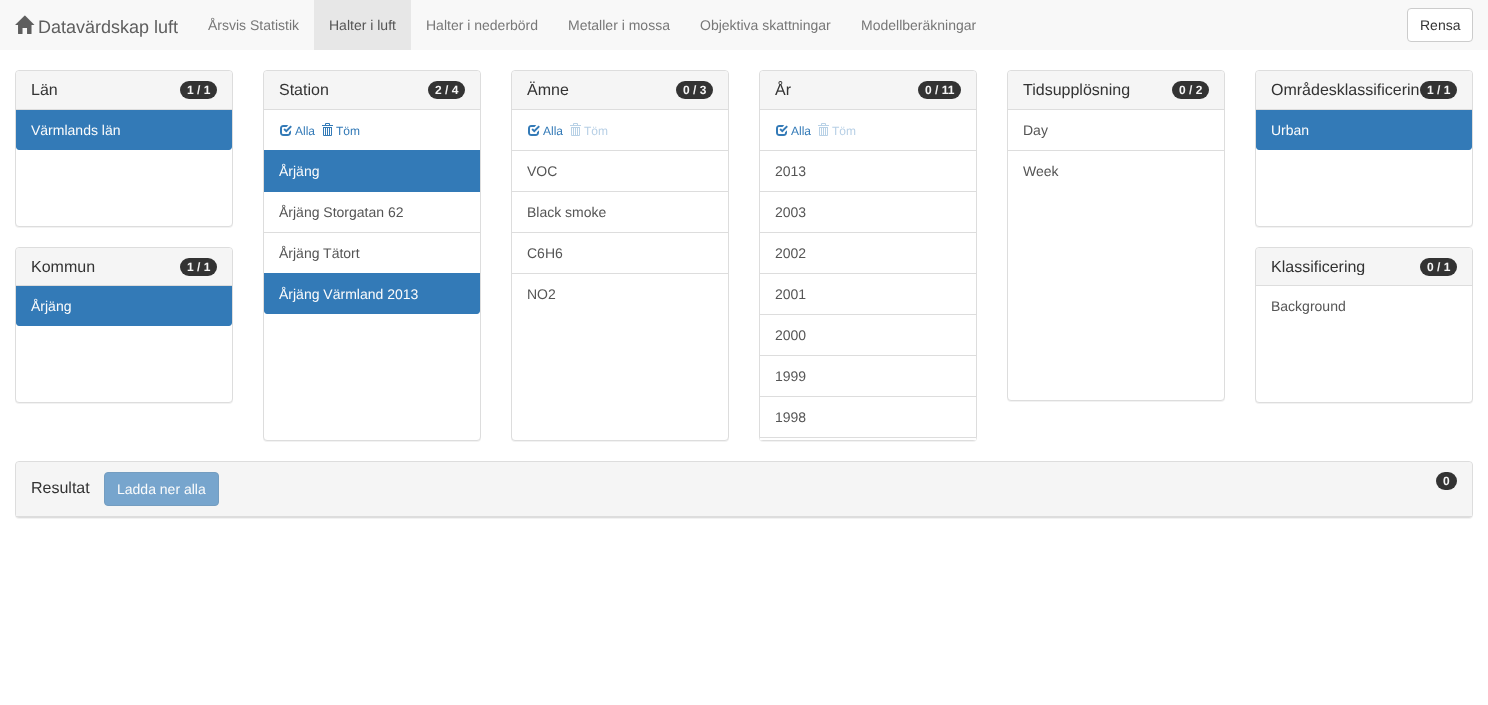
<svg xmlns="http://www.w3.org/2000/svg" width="1488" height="705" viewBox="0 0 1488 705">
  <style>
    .t1 { font: 18px Liberation Sans; fill: #5e5e5e; }
    .t2 { font: 14px Liberation Sans; fill: #777; }
    .t3 { font: 14px Liberation Sans; fill: #555; }
    .t4 { font: 14px Liberation Sans; fill: #333; }
    .t5 { font: 16px Liberation Sans; fill: #333; }
    .t6 { font: bold 12px Liberation Sans; fill: #f5f5f5; }
    .t7 { font: 14px Liberation Sans; fill: #fcfcfc; }
    .t8 { font: 12px Liberation Sans; fill: #337ab7; }
    .t9 { font: 12px Liberation Sans; fill: #b8d0e6; }
  </style>
  <defs>
    <clipPath id="clip1"><rect x="1271" y="258" width="149" height="17"/></clipPath>
  </defs>
  <rect width="100%" height="100%" fill="#fff"/>
  <rect x="0" y="0" width="1488" height="50" fill="#f8f8f8"/>
  <image x="15" y="15" width="20" height="19" href="images/1.png"/>
  <text x="38" y="33" class="t1">Datavärdskap luft</text>
  <text x="208" y="30" class="t2">Årsvis Statistik</text>
  <rect x="314" y="0" width="97" height="50" fill="#e7e7e7"/>
  <text x="329" y="30" class="t3">Halter i luft</text>
  <text x="426" y="30" class="t2">Halter i nederbörd</text>
  <text x="568" y="30" class="t2">Metaller i mossa</text>
  <text x="700" y="30" class="t2">Objektiva skattningar</text>
  <text x="861" y="30" class="t2">Modellberäkningar</text>
  <rect x="1407.5" y="8.5" width="65" height="33" rx="3.5" fill="#fff" stroke="#ccc"/>
  <text x="1420" y="30" class="t4">Rensa</text>
  <rect x="15" y="71" width="218" height="157" rx="4" fill="#0000000d" filter="blur(0.5px)"/>
  <rect x="15.5" y="70.5" width="217" height="156" rx="3.5" fill="#fff" stroke="#ddd"/>
  <path d="M19 71H229C230.5 71 232 72.5 232 74V110H16V74C16 72.5 17.5 71 19 71Z" fill="#f5f5f5"/>
  <rect x="16" y="109" width="216" height="1" fill="#ddd"/>
  <text x="31" y="95" class="t5">Län</text>
  <rect x="180" y="81" width="37" height="18" rx="9" fill="#333"/>
  <text x="187" y="94" class="t6">1 / 1</text>
  <path d="M16 110H232V147C232 148.5 230.5 150 229 150H19C17.5 150 16 148.5 16 147Z" fill="#337ab7"/>
  <text x="31" y="135" class="t7">Värmlands län</text>
  <rect x="15" y="248" width="218" height="156" rx="4" fill="#0000000d" filter="blur(0.5px)"/>
  <rect x="15.5" y="247.5" width="217" height="155" rx="3.5" fill="#fff" stroke="#ddd"/>
  <path d="M19 248H229C230.5 248 232 249.5 232 251V286H16V251C16 249.5 17.5 248 19 248Z" fill="#f5f5f5"/>
  <rect x="16" y="285" width="216" height="1" fill="#ddd"/>
  <text x="31" y="272" class="t5">Kommun</text>
  <rect x="180" y="258" width="37" height="18" rx="9" fill="#333"/>
  <text x="187" y="271" class="t6">1 / 1</text>
  <path d="M16 286H232V323C232 324.5 230.5 326 229 326H19C17.5 326 16 324.5 16 323Z" fill="#337ab7"/>
  <text x="31" y="311" class="t7">Årjäng</text>
  <rect x="263" y="71" width="218" height="371" rx="4" fill="#0000000d" filter="blur(0.5px)"/>
  <rect x="263.5" y="70.5" width="217" height="370" rx="3.5" fill="#fff" stroke="#ddd"/>
  <path d="M267 71H477C478.5 71 480 72.5 480 74V110H264V74C264 72.5 265.5 71 267 71Z" fill="#f5f5f5"/>
  <rect x="264" y="109" width="216" height="1" fill="#ddd"/>
  <text x="279" y="95" class="t5">Station</text>
  <rect x="428" y="81" width="37" height="18" rx="9" fill="#333"/>
  <text x="435" y="94" class="t6">2 / 4</text>
  <image x="280" y="125" width="12" height="11" href="images/2.png"/>
  <text x="295" y="135" class="t8">Alla</text>
  <image x="322" y="123" width="11" height="13" href="images/3.png"/>
  <text x="336" y="135" class="t8">Töm</text>
  <rect x="264" y="150" width="216" height="42" fill="#337ab7"/>
  <text x="279" y="176" class="t7">Årjäng</text>
  <rect x="264" y="232" width="216" height="1" fill="#ddd"/>
  <text x="279" y="217" class="t3">Årjäng Storgatan 62</text>
  <text x="279" y="258" class="t3">Årjäng Tätort</text>
  <path d="M264 273H480V311C480 312.5 478.5 314 477 314H267C265.5 314 264 312.5 264 311Z" fill="#337ab7"/>
  <text x="279" y="299" class="t7">Årjäng Värmland 2013</text>
  <rect x="511" y="71" width="218" height="371" rx="4" fill="#0000000d" filter="blur(0.5px)"/>
  <rect x="511.5" y="70.5" width="217" height="370" rx="3.5" fill="#fff" stroke="#ddd"/>
  <path d="M515 71H725C726.5 71 728 72.5 728 74V110H512V74C512 72.5 513.5 71 515 71Z" fill="#f5f5f5"/>
  <rect x="512" y="109" width="216" height="1" fill="#ddd"/>
  <text x="527" y="95" class="t5">Ämne</text>
  <rect x="676" y="81" width="37" height="18" rx="9" fill="#333"/>
  <text x="683" y="94" class="t6">0 / 3</text>
  <image x="528" y="125" width="12" height="11" href="images/2.png"/>
  <text x="543" y="135" class="t8">Alla</text>
  <image x="570" y="123" width="11" height="13" href="images/4.png"/>
  <text x="584" y="135" class="t9">Töm</text>
  <rect x="512" y="150" width="216" height="1" fill="#ddd"/>
  <rect x="512" y="191" width="216" height="1" fill="#ddd"/>
  <text x="527" y="176" class="t3">VOC</text>
  <rect x="512" y="232" width="216" height="1" fill="#ddd"/>
  <text x="527" y="217" class="t3">Black smoke</text>
  <text x="527" y="258" class="t3">C6H6</text>
  <rect x="512" y="273" width="216" height="1" fill="#ddd"/>
  <text x="527" y="299" class="t3">NO2</text>
  <rect x="759" y="71" width="218" height="371" rx="4" fill="#0000000d" filter="blur(0.5px)"/>
  <rect x="759.5" y="70.5" width="217" height="370" rx="3.5" fill="#fff" stroke="#ddd"/>
  <path d="M763 71H973C974.5 71 976 72.5 976 74V110H760V74C760 72.5 761.5 71 763 71Z" fill="#f5f5f5"/>
  <rect x="760" y="109" width="216" height="1" fill="#ddd"/>
  <text x="775" y="95" class="t5">År</text>
  <rect x="918" y="81" width="43" height="18" rx="9" fill="#333"/>
  <text x="925" y="94" class="t6">0 / 11</text>
  <image x="776" y="125" width="12" height="11" href="images/2.png"/>
  <text x="791" y="135" class="t8">Alla</text>
  <image x="818" y="123" width="11" height="13" href="images/4.png"/>
  <text x="832" y="135" class="t9">Töm</text>
  <rect x="760" y="150" width="216" height="1" fill="#ddd"/>
  <rect x="760" y="191" width="216" height="1" fill="#ddd"/>
  <text x="775" y="176" class="t3">2013</text>
  <rect x="760" y="232" width="216" height="1" fill="#ddd"/>
  <text x="775" y="217" class="t3">2003</text>
  <rect x="760" y="273" width="216" height="1" fill="#ddd"/>
  <text x="775" y="258" class="t3">2002</text>
  <rect x="760" y="314" width="216" height="1" fill="#ddd"/>
  <text x="775" y="299" class="t3">2001</text>
  <rect x="760" y="355" width="216" height="1" fill="#ddd"/>
  <text x="775" y="340" class="t3">2000</text>
  <rect x="760" y="396" width="216" height="1" fill="#ddd"/>
  <text x="775" y="381" class="t3">1999</text>
  <rect x="760" y="437" width="216" height="1" fill="#ddd"/>
  <text x="775" y="422" class="t3">1998</text>
  <rect x="760" y="438" width="216" height="2" fill="#fff"/>
  <rect x="1007" y="71" width="218" height="331" rx="4" fill="#0000000d" filter="blur(0.5px)"/>
  <rect x="1007.5" y="70.5" width="217" height="330" rx="3.5" fill="#fff" stroke="#ddd"/>
  <path d="M1011 71H1221C1222.5 71 1224 72.5 1224 74V110H1008V74C1008 72.5 1009.5 71 1011 71Z" fill="#f5f5f5"/>
  <rect x="1008" y="109" width="216" height="1" fill="#ddd"/>
  <text x="1023" y="95" class="t5">Tidsupplösning</text>
  <rect x="1172" y="81" width="37" height="18" rx="9" fill="#333"/>
  <text x="1179" y="94" class="t6">0 / 2</text>
  <text x="1023" y="135" class="t3">Day</text>
  <rect x="1008" y="150" width="216" height="1" fill="#ddd"/>
  <text x="1023" y="176" class="t3">Week</text>
  <rect x="1255" y="71" width="218" height="157" rx="4" fill="#0000000d" filter="blur(0.5px)"/>
  <rect x="1255.5" y="70.5" width="217" height="156" rx="3.5" fill="#fff" stroke="#ddd"/>
  <path d="M1259 71H1469C1470.5 71 1472 72.5 1472 74V110H1256V74C1256 72.5 1257.5 71 1259 71Z" fill="#f5f5f5"/>
  <rect x="1256" y="109" width="216" height="1" fill="#ddd"/>
  <text x="1271" y="95" class="t5">Områdesklassificerin</text>
  <rect x="1420" y="81" width="37" height="18" rx="9" fill="#333"/>
  <text x="1427" y="94" class="t6">1 / 1</text>
  <path d="M1256 110H1472V147C1472 148.5 1470.5 150 1469 150H1259C1257.5 150 1256 148.5 1256 147Z" fill="#337ab7"/>
  <text x="1271" y="135" class="t7">Urban</text>
  <rect x="1255" y="248" width="218" height="156" rx="4" fill="#0000000d" filter="blur(0.5px)"/>
  <rect x="1255.5" y="247.5" width="217" height="155" rx="3.5" fill="#fff" stroke="#ddd"/>
  <path d="M1259 248H1469C1470.5 248 1472 249.5 1472 251V286H1256V251C1256 249.5 1257.5 248 1259 248Z" fill="#f5f5f5"/>
  <rect x="1256" y="285" width="216" height="1" fill="#ddd"/>
  <g clip-path="url(#clip1)">
    <text x="1271" y="272" class="t5">Klassificering</text>
  </g>
  <rect x="1420" y="258" width="37" height="18" rx="9" fill="#333"/>
  <text x="1427" y="271" class="t6">0 / 1</text>
  <text x="1271" y="311" class="t3">Background</text>
  <rect x="15" y="462" width="1458" height="57" rx="4" fill="#0000000d" filter="blur(0.5px)"/>
  <rect x="15.5" y="461.5" width="1457" height="56" rx="3.5" fill="none" stroke="#ddd"/>
  <path d="M19 462H1469C1470.5 462 1472 463.5 1472 465V517H16V465C16 463.5 17.5 462 19 462Z" fill="#f5f5f5"/>
  <rect x="16" y="516" width="1456" height="1" fill="#ddd"/>
  <text x="31" y="493" class="t5">Resultat</text>
  <rect x="104.5" y="472.5" width="114" height="33" rx="3.5" fill="#77a5cd" stroke="#749dc0"/>
  <text x="117" y="494" class="t7">Ladda ner alla</text>
  <rect x="1436" y="472" width="21" height="18" rx="9" fill="#333"/>
  <text x="1443" y="485" class="t6">0</text>
</svg>
